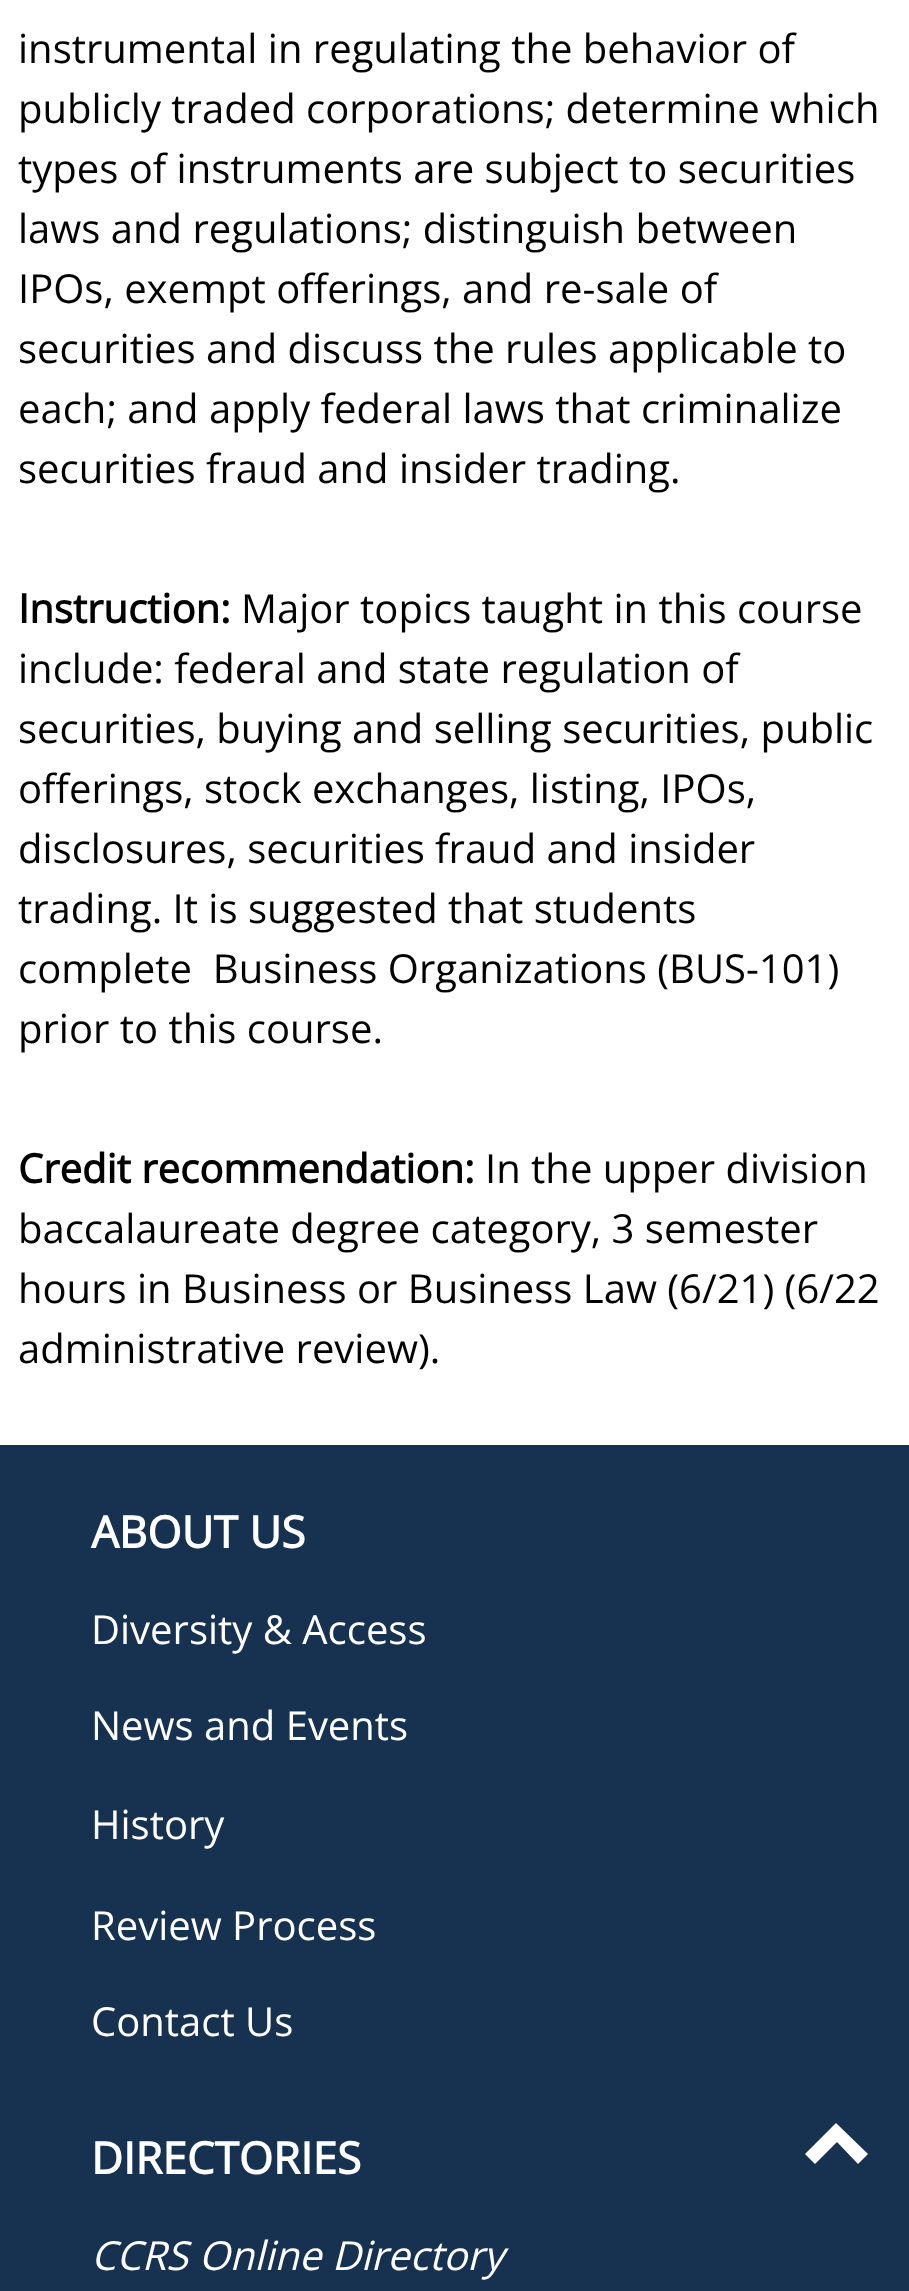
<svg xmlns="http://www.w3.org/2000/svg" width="909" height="2291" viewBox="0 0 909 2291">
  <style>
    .t1 { font: 40px Open Sans; fill: #000; }
    .t2 { font: bold 40px Open Sans; fill: #000; }
    .t3 { font: bold 44px Open Sans; fill: #fff; }
    .t4 { font: 40px Open Sans; fill: #fff; }
    .t5 { font: italic 40px Open Sans; fill: #fff; }
  </style>
  <rect width="100%" height="100%" fill="#fff"/>
  <text x="18" y="63" class="t1">instrumental in regulating the behavior of</text>
  <text x="18" y="123" class="t1">publicly traded corporations; determine which</text>
  <text x="18" y="183" class="t1">types of instruments are subject to securities</text>
  <text x="18" y="243" class="t1">laws and regulations; distinguish between</text>
  <text x="18" y="303" class="t1">IPOs, exempt offerings, and re-sale of</text>
  <text x="18" y="363" class="t1">securities and discuss the rules applicable to</text>
  <text x="18" y="423" class="t1">each; and apply federal laws that criminalize</text>
  <text x="18" y="483" class="t1">securities fraud and insider trading.</text>
  <text x="241" y="623" class="t1">Major topics taught in this course</text>
  <text x="18" y="683" class="t1">include: federal and state regulation of</text>
  <text x="18" y="743" class="t1">securities, buying and selling securities, public</text>
  <text x="18" y="803" class="t1">offerings, stock exchanges, listing, IPOs,</text>
  <text x="18" y="863" class="t1">disclosures, securities fraud and insider</text>
  <text x="18" y="923" class="t1">trading. It is suggested that students</text>
  <text x="18" y="983" class="t1" xml:space="preserve">complete  Business Organizations (BUS-101)</text>
  <text x="18" y="1043" class="t1">prior to this course.</text>
  <text x="18" y="623" class="t2">Instruction:</text>
  <text x="18" y="1183" class="t2">Credit recommendation:</text>
  <text x="485" y="1183" class="t1">In the upper division</text>
  <text x="18" y="1243" class="t1">baccalaureate degree category, 3 semester</text>
  <text x="18" y="1303" class="t1">hours in Business or Business Law (6/21) (6/22</text>
  <text x="18" y="1363" class="t1">administrative review).</text>
  <rect x="0" y="1445" width="909" height="846" fill="#173151"/>
  <text x="91" y="1548" class="t3">ABOUT US</text>
  <text x="91" y="1644" class="t4">Diversity &amp; Access</text>
  <text x="91" y="1740" class="t4">News and Events</text>
  <text x="91" y="1839" class="t4">History</text>
  <text x="91" y="1940" class="t4">Review Process</text>
  <text x="91" y="2036" class="t4">Contact Us</text>
  <text x="91" y="2174" class="t3">DIRECTORIES</text>
  <text x="91" y="2270" class="t5">CCRS Online Directory</text>
  <path d="M836 2123L868 2154L858 2164L837 2142L815 2164L805 2154Z" fill="#fff"/>
</svg>
